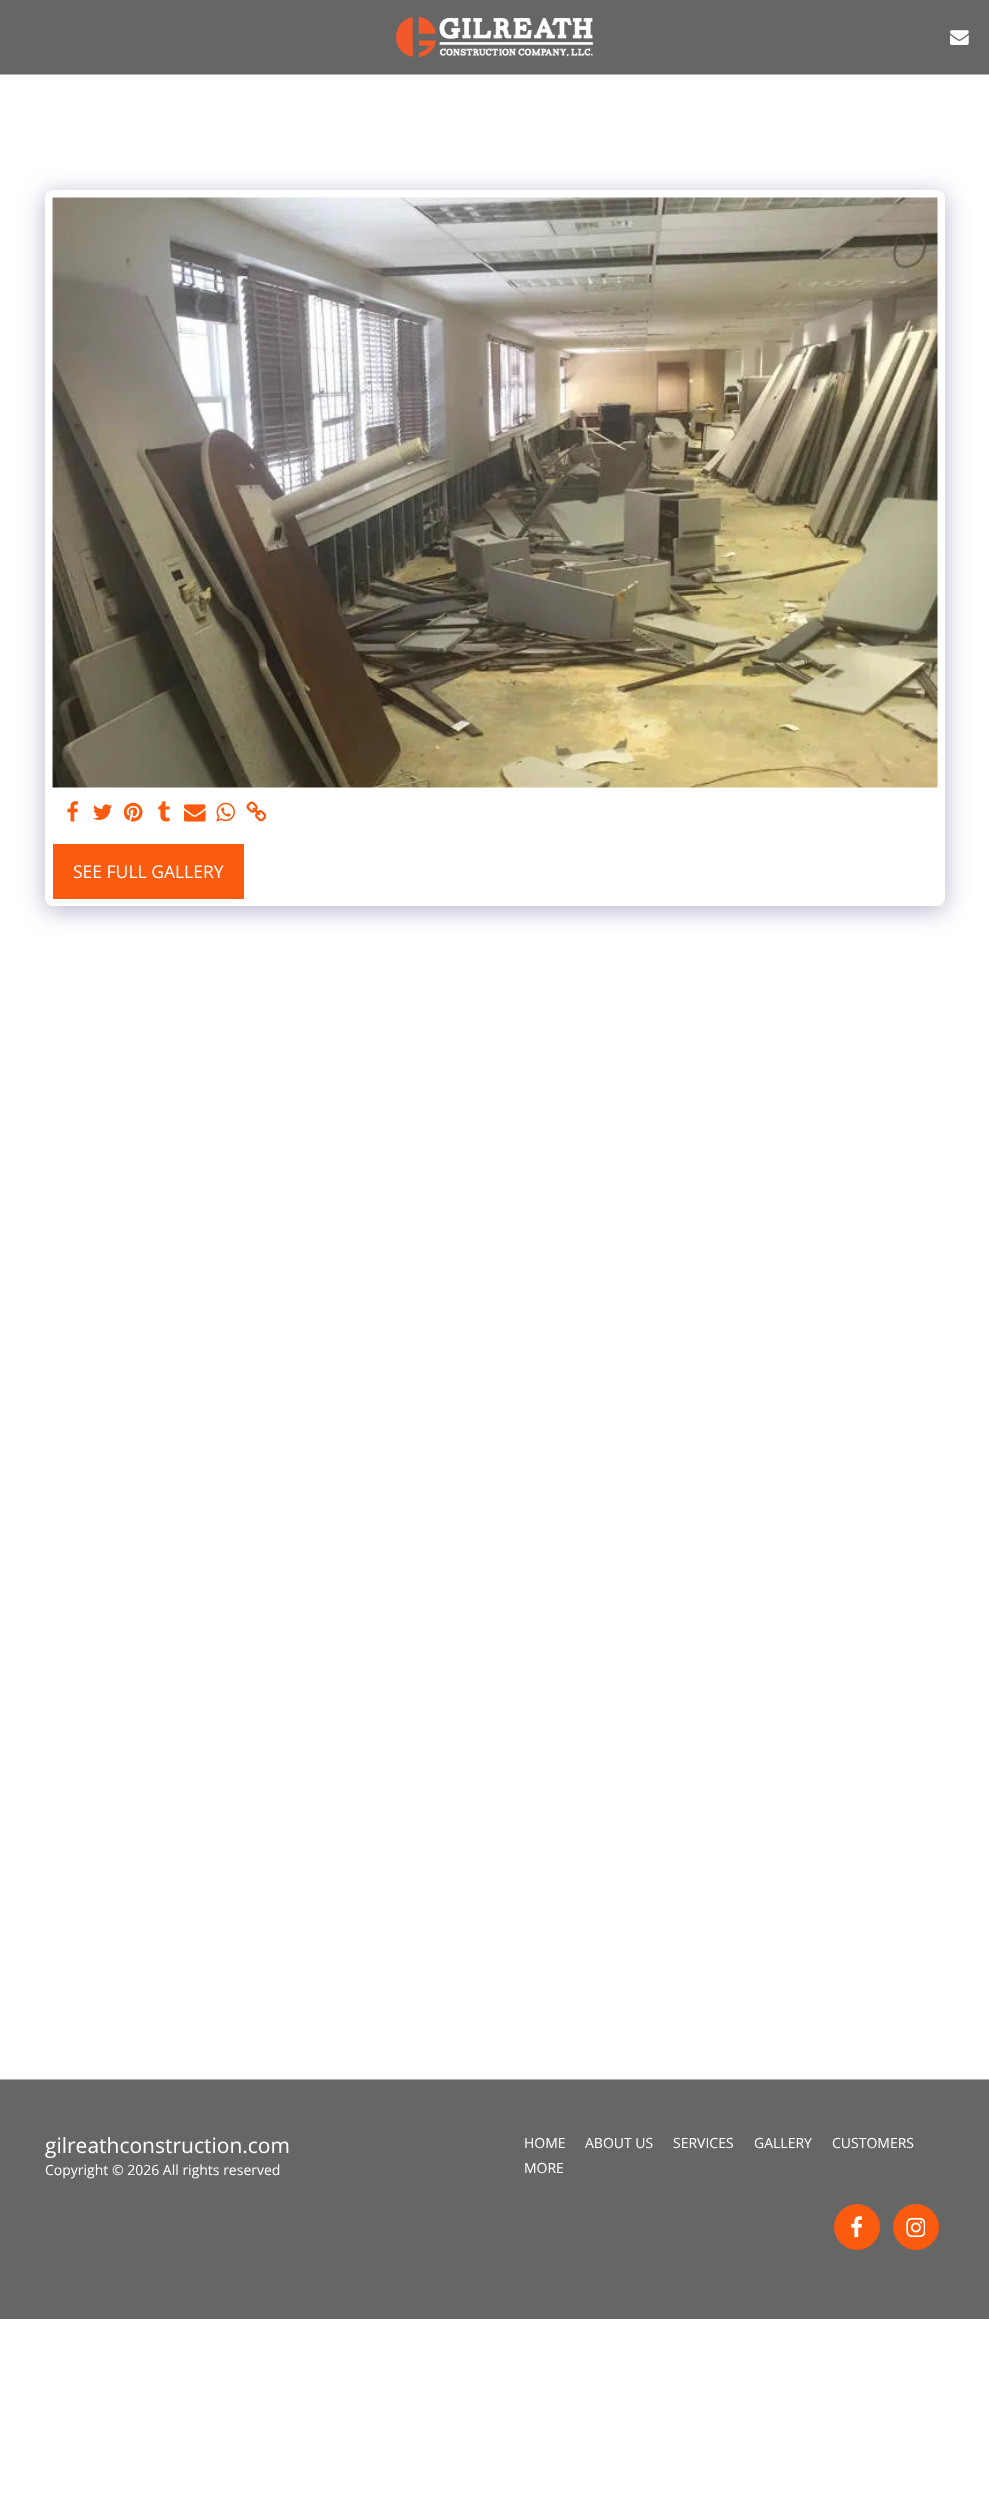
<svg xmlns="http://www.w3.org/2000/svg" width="989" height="2505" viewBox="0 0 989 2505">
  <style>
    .t1 { font: 17.5px Open Sans; fill: #fff; }
    .t2 { font: 21px Open Sans; fill: #fff; }
    .t3 { font: 14px Open Sans; fill: #fff; }
  </style>
  <rect width="100%" height="100%" fill="#fff"/>
  <rect x="0" y="0" width="989" height="74" fill="#666"/>
  <rect x="0" y="74" width="989" height="1" fill="#b2acac"/>
  <image x="395" y="16" width="199" height="41" href="images/1.png"/>
  <image x="950" y="30" width="19" height="15" href="images/2.png"/>
  <rect x="45" y="194" width="900" height="716" rx="8" fill="#4d3f7a66" filter="blur(12.5px)"/>
  <rect x="45" y="190" width="900" height="716" rx="8" fill="#fff"/>
  <image x="52" y="197" width="886" height="591" href="images/3.png"/>
  <image x="67" y="801" width="11" height="21" href="images/4.png"/>
  <image x="93" y="804" width="20" height="16" href="images/5.png"/>
  <image x="124" y="802" width="19" height="20" href="images/6.png"/>
  <image x="158" y="801" width="12" height="21" href="images/7.png"/>
  <image x="184" y="804" width="22" height="18" href="images/8.png"/>
  <image x="216" y="802" width="19" height="20" href="images/9.png"/>
  <image x="246" y="801" width="20" height="21" href="images/10.png"/>
  <rect x="53" y="844" width="191" height="55" fill="#fa5b0f"/>
  <text x="73" y="878" class="t1">SEE FULL GALLERY</text>
  <rect x="0" y="2080" width="989" height="239" fill="#666"/>
  <rect x="0" y="2079" width="989" height="1" fill="#b2acac"/>
  <text x="45" y="2153" class="t2">gilreathconstruction.com</text>
  <text x="45" y="2175" class="t3">Copyright © 2026 All rights reserved</text>
  <text x="524" y="2148" class="t3">HOME</text>
  <text x="585" y="2148" class="t3">ABOUT US</text>
  <text x="673" y="2148" class="t3">SERVICES</text>
  <text x="754" y="2148" class="t3">GALLERY</text>
  <text x="832" y="2148" class="t3">CUSTOMERS</text>
  <text x="524" y="2173" class="t3">MORE</text>
  <circle cx="857" cy="2227" r="22.5" fill="#fa5b0f" stroke="#fa5b0f"/>
  <image x="851" y="2216" width="12" height="22" href="images/11.png"/>
  <circle cx="916" cy="2227" r="22.5" fill="#fa5b0f" stroke="#fa5b0f"/>
  <image x="906" y="2217" width="19" height="21" href="images/12.png"/>
</svg>
